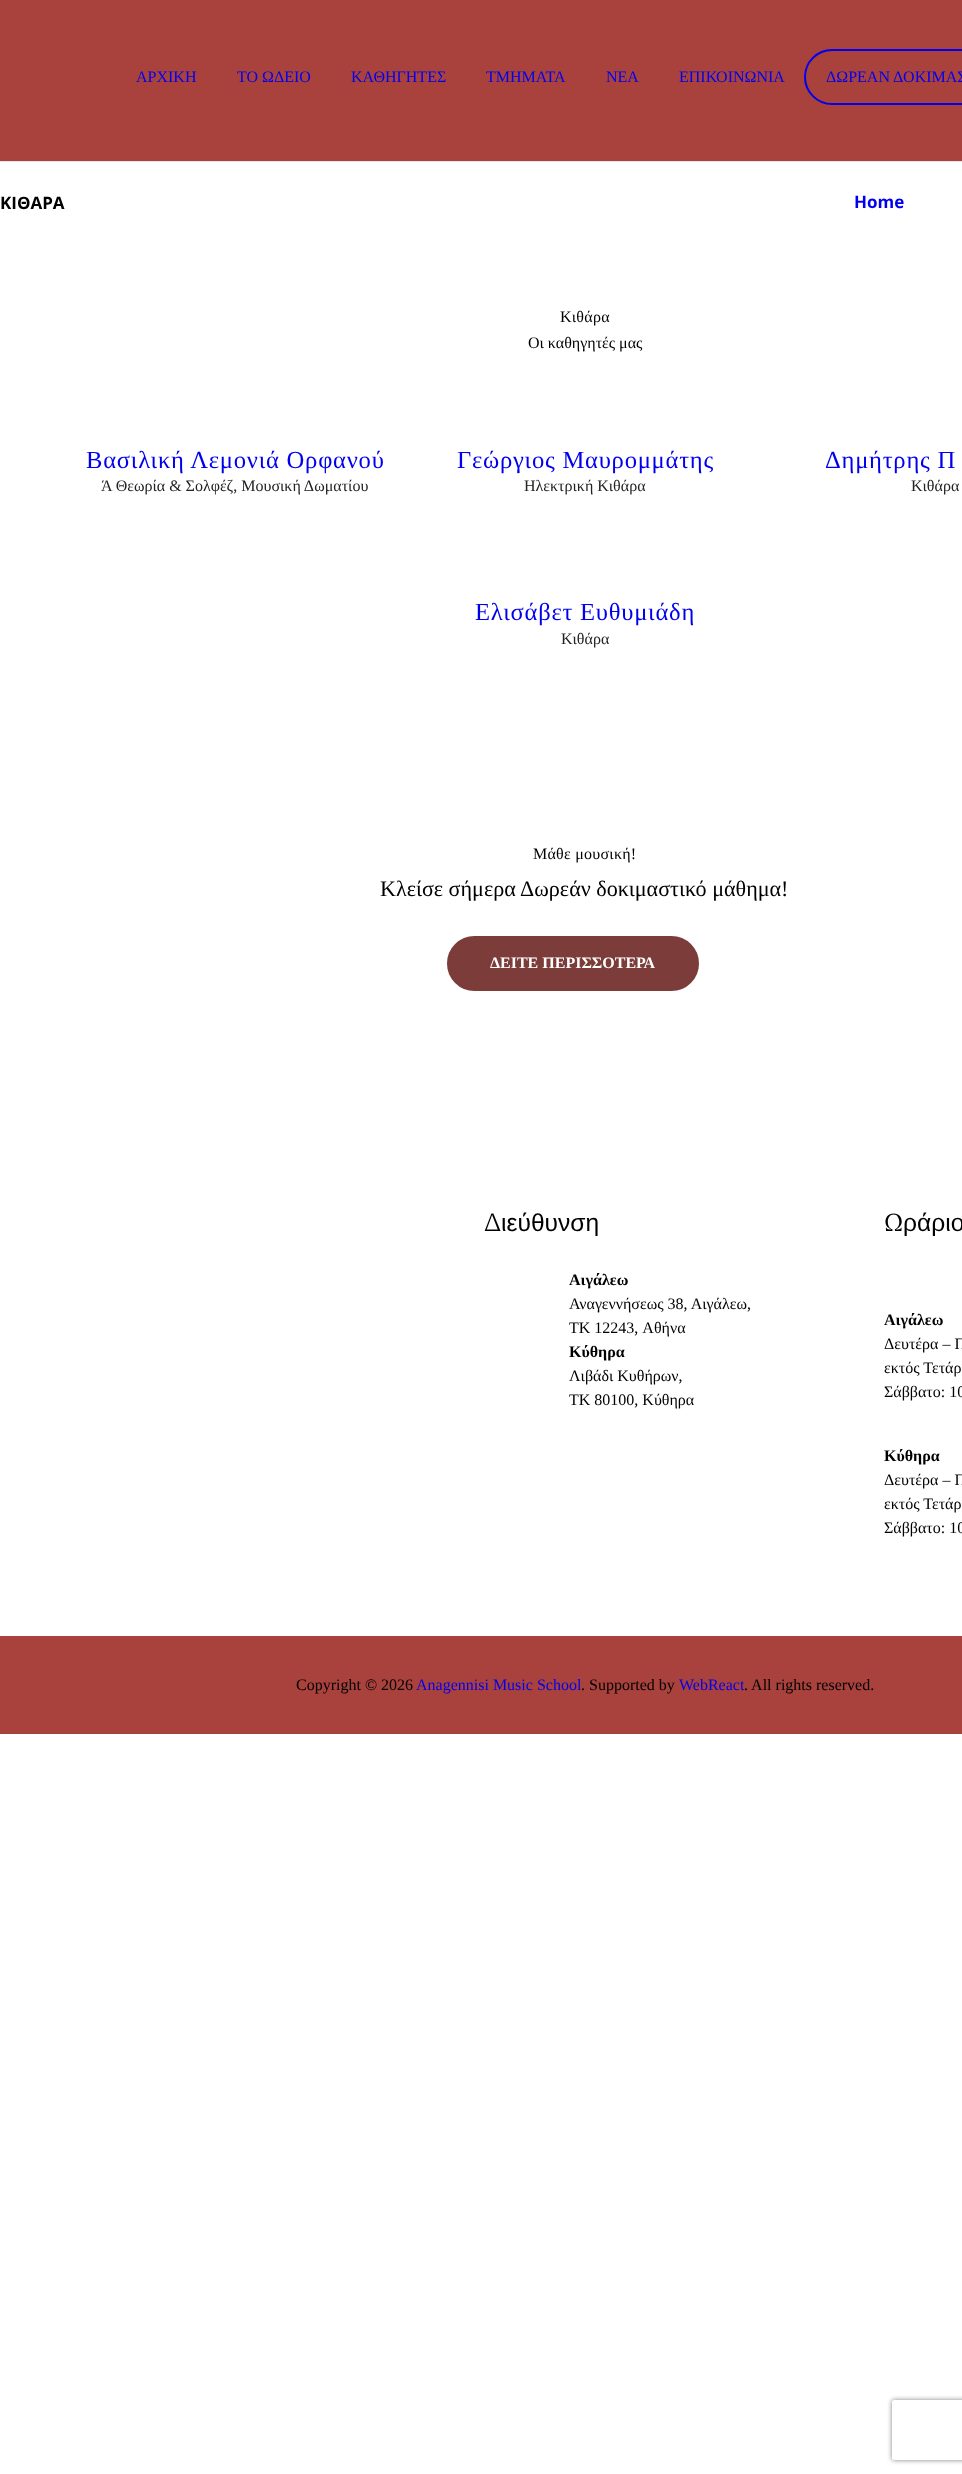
<svg xmlns="http://www.w3.org/2000/svg" width="962" height="2474" viewBox="0 0 962 2474">
  <style>
    .t1 { font: 16px Liberation Serif; fill: #00e; }
    .t2 { font: bold 17px Open Sans; fill: #000; }
    .t3 { font: bold 17px Open Sans; fill: #00e; }
    .t4 { font: 16px Liberation Serif; letter-spacing: 0.25px; fill: #000; }
    .t5 { font: 16px Liberation Serif; fill: #000; }
    .t6 { font: 24.6px Liberation Serif; letter-spacing: 0.75px; fill: #00e; }
    .t7 { font: 16px Liberation Serif; fill: #222; }
    .t8 { font: 22.1px Liberation Serif; fill: #000; }
    .t9 { font: bold 16px Liberation Serif; fill: #fff; }
    .t10 { font: 24.6px Lora; fill: #000; }
    .t11 { font: 24.6px Liberation Sans; fill: #000; }
    .t12 { font: bold 16px Liberation Serif; fill: #000; }
  </style>
  <defs>
    <clipPath id="clip1"><path d="M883 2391H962V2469H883ZM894 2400H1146C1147 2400 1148 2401 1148 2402V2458C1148 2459 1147 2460 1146 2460H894C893 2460 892 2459 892 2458V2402C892 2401 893 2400 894 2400Z" clip-rule="evenodd"/></clipPath>
  </defs>
  <rect width="100%" height="100%" fill="#fff"/>
  <rect x="0" y="0" width="962" height="161" fill="#a9413d"/>
  <text x="136" y="82" class="t1">ΑΡΧΙΚΗ</text>
  <text x="237" y="82" class="t1">ΤΟ ΩΔΕΙΟ</text>
  <text x="351" y="82" class="t1">ΚΑΘΗΓΗΤΕΣ</text>
  <text x="486" y="82" class="t1">ΤΜΗΜΑΤΑ</text>
  <text x="606" y="82" class="t1">ΝΕΑ</text>
  <text x="679" y="82" class="t1">ΕΠΙΚΟΙΝΩΝΙΑ</text>
  <rect x="805" y="50" width="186" height="54" rx="27" fill="none" stroke="#00e" stroke-width="2"/>
  <text x="826" y="82" class="t1">ΔΩΡΕΑΝ ΔΟΚΙΜΑΣ</text>
  <rect x="0" y="161" width="962" height="1" fill="#e6e6e6"/>
  <text x="0" y="209" class="t2">ΚΙΘΑΡΑ</text>
  <text x="854" y="208" class="t3">Home</text>
  <text x="560" y="322" class="t4">Κιθάρα</text>
  <text x="528" y="348" class="t5">Οι καθηγητές μας</text>
  <text x="86" y="468" class="t6">Βασιλική Λεμονιά Ορφανού</text>
  <text x="101" y="491" class="t7">Ά Θεωρία &amp; Σολφέζ, Μουσική Δωματίου</text>
  <text x="457" y="468" class="t6">Γεώργιος Μαυρομμάτης</text>
  <text x="524" y="491" class="t7">Ηλεκτρική Κιθάρα</text>
  <text x="825" y="468" class="t6">Δημήτρης Π</text>
  <text x="911" y="491" class="t7">Κιθάρα</text>
  <text x="475" y="620" class="t6">Ελισάβετ Ευθυμιάδη</text>
  <text x="561" y="644" class="t7">Κιθάρα</text>
  <text x="533" y="859" class="t4">Μάθε μουσική!</text>
  <text x="380" y="896" class="t8">Κλείσε σήμερα Δωρεάν δοκιμαστικό μάθημα!</text>
  <rect x="448" y="937" width="250" height="53" rx="26.5" fill="#7c3c39" stroke="#7c3c39" stroke-width="2"/>
  <text x="490" y="968" class="t9">ΔΕΙΤΕ ΠΕΡΙΣΣΟΤΕΡΑ</text>
  <text x="484" y="1231" class="t10">Δ</text>
  <text x="501" y="1231" class="t11">ιεύθυνση</text>
  <text x="569" y="1285" class="t12">Αιγάλεω</text>
  <text x="569" y="1309" class="t5">Αναγεννήσεως 38, Αιγάλεω,</text>
  <text x="569" y="1333" class="t5">TK 12243, Αθήνα</text>
  <text x="569" y="1357" class="t12">Κύθηρα</text>
  <text x="569" y="1381" class="t5">Λιβάδι Κυθήρων,</text>
  <text x="569" y="1405" class="t5">TK 80100, Κύθηρα</text>
  <text x="884" y="1231" class="t10">Ω</text>
  <text x="903" y="1231" word-spacing="1" class="t11">ράριο</text>
  <text x="884" y="1325" class="t12">Αιγάλεω</text>
  <text x="884" y="1349" class="t5">Δευτέρα – Π</text>
  <text x="884" y="1373" class="t5">εκτός Τετάρ</text>
  <text x="884" y="1397" class="t5">Σάββατο: 10</text>
  <text x="884" y="1461" class="t12">Κύθηρα</text>
  <text x="884" y="1485" class="t5">Δευτέρα – Π</text>
  <text x="884" y="1509" class="t5">εκτός Τετάρ</text>
  <text x="884" y="1533" class="t5">Σάββατο: 10</text>
  <rect x="0" y="1636" width="962" height="98" fill="#a9413d"/>
  <text x="296" y="1690" class="t5">Copyright © 2026</text>
  <text x="416" y="1690" class="t1">Anagennisi Music School</text>
  <text x="581" y="1690" class="t5">. Supported by</text>
  <text x="679" y="1690" class="t1">WebReact</text>
  <text x="744" y="1690" class="t5">. All rights reserved.</text>
  <g clip-path="url(#clip1)">
    <rect x="892" y="2400" width="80" height="60" rx="2" fill="#808080" filter="blur(2.5px)"/>
  </g>
</svg>
